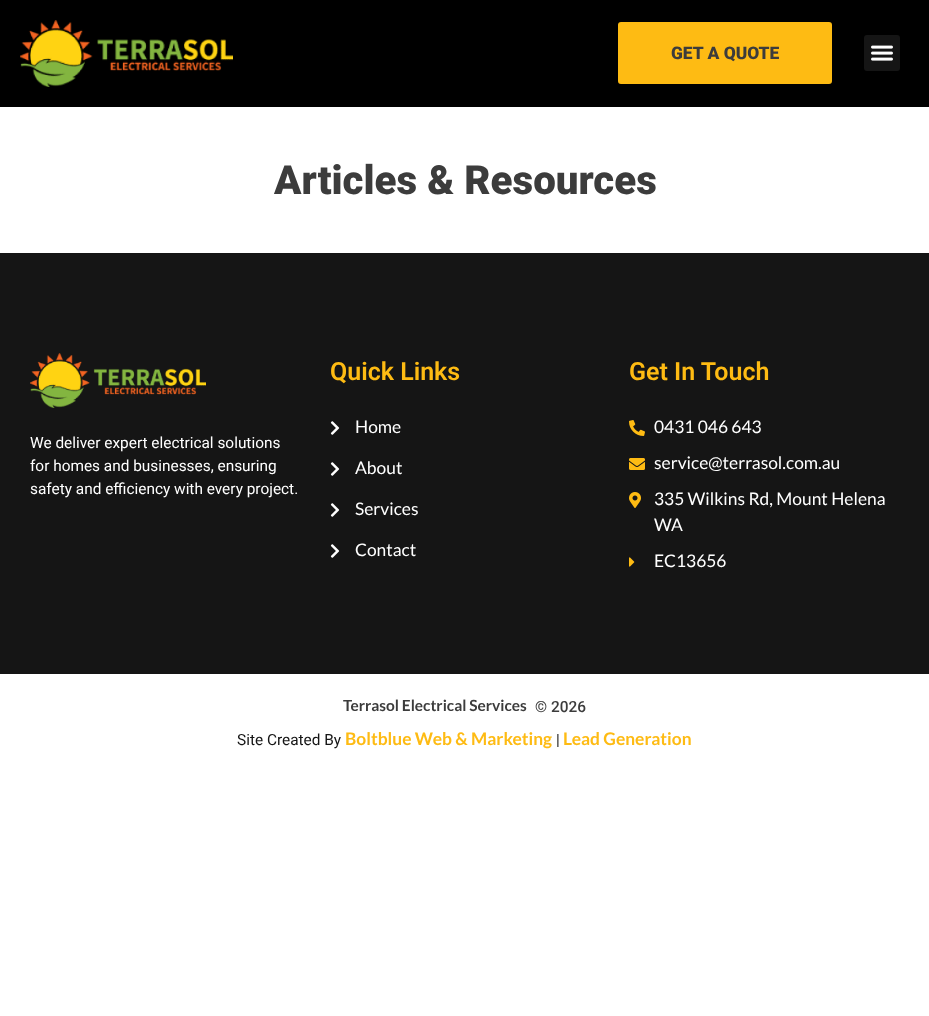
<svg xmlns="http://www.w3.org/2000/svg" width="929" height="1016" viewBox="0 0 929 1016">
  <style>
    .t1 { font: 900 17.4px Roboto; fill: #3c3c3c; }
    .t2 { font: 900 40.25px Roboto; fill: #3c3c3c; }
    .t3 { font: 15.4px Roboto; fill: #fff; }
    .t4 { font: 600 25px Roboto; fill: #febb13; }
    .t5 { font: 17.4px Lato; fill: #fff; }
    .t6 { font: bold 15.4px Lato; fill: #3c3c3c; }
    .t7 { font: 500 15.4px Roboto; fill: #3c3c3c; }
    .t8 { font: 15.4px Roboto; fill: #151515; }
    .t9 { font: bold 17.4px Lato; fill: #febb13; }
  </style>
  <rect width="100%" height="100%" fill="#fff"/>
  <rect x="0" y="0" width="929" height="107" fill="#000"/>
  <image x="20" y="20" width="213" height="67" href="images/1.png"/>
  <rect x="619.5" y="23.5" width="211" height="59" rx="1.5" fill="#febb13" stroke="#febb13" stroke-width="3"/>
  <text x="671" y="59" class="t1">GET A QUOTE</text>
  <rect x="864" y="35" width="36" height="36" rx="3" fill="#151515"/>
  <image x="871" y="45" width="22" height="16" href="images/2.png"/>
  <text x="274" y="194" class="t2">Articles &amp; Resources</text>
  <rect x="0" y="253" width="929" height="421" fill="#151515"/>
  <image x="30" y="353" width="176" height="55" href="images/3.png"/>
  <text x="30" y="448" class="t3">We deliver expert electrical solutions</text>
  <text x="30" y="471" class="t3">for homes and businesses, ensuring</text>
  <text x="30" y="494" class="t3">safety and efficiency with every project.</text>
  <text x="330" y="380" class="t4">Quick Links</text>
  <image x="330" y="421" width="10" height="14" href="images/4.png"/>
  <text x="355" y="433" class="t5">Home</text>
  <image x="330" y="462" width="10" height="14" href="images/4.png"/>
  <text x="355" y="474" class="t5">About</text>
  <image x="330" y="503" width="10" height="14" href="images/4.png"/>
  <text x="355" y="515" class="t5">Services</text>
  <image x="330" y="544" width="10" height="14" href="images/4.png"/>
  <text x="355" y="556" class="t5">Contact</text>
  <text x="629" y="380" class="t4">Get In Touch</text>
  <image x="629" y="420" width="16" height="16" href="images/5.png"/>
  <text x="654" y="433" class="t5">0431 046 643</text>
  <image x="629" y="458" width="16" height="12" href="images/6.png"/>
  <text x="654" y="469" class="t5">service@terrasol.com.au</text>
  <image x="629" y="492" width="12" height="16" href="images/7.png"/>
  <text x="654" y="505" class="t5">335 Wilkins Rd, Mount Helena</text>
  <text x="654" y="531" class="t5">WA</text>
  <image x="629" y="557" width="6" height="10" href="images/8.png"/>
  <text x="654" y="567" class="t5">EC13656</text>
  <text x="343" y="711" class="t6">Terrasol Electrical Services</text>
  <text x="535" y="712" class="t7">© 2026</text>
  <text x="237" y="745" class="t8">Site Created By</text>
  <text x="345" y="745" class="t9">Boltblue Web &amp; Marketing</text>
  <text x="556" y="745" class="t8">|</text>
  <text x="563" y="745" class="t9">Lead Generation</text>
</svg>
